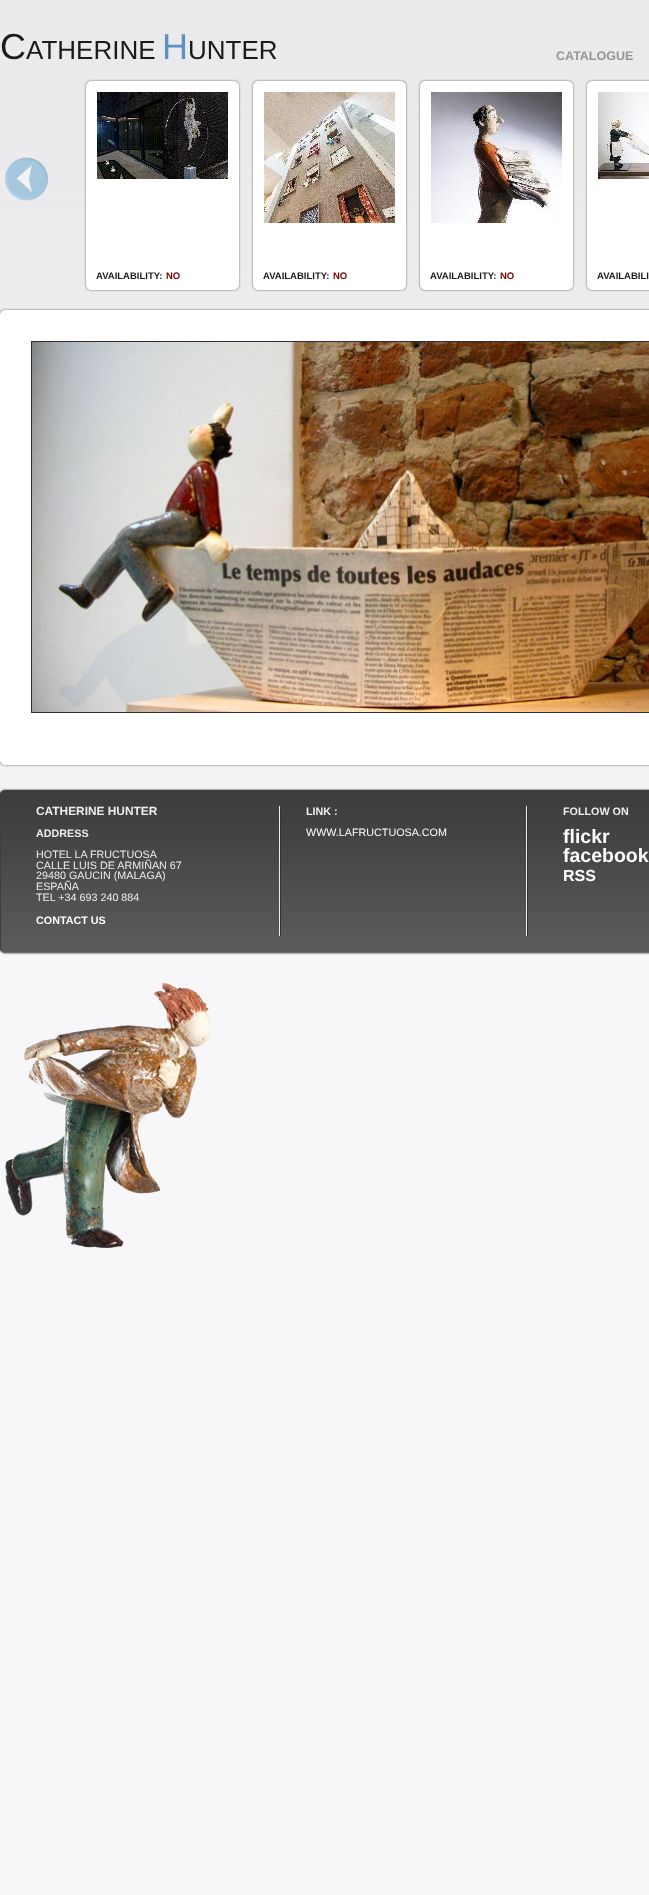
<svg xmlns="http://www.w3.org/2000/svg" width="649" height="1895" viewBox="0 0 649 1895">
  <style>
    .t1 { font: 36px Liberation Sans; fill: #1a1a1a; }
    .t2 { font: 26px Liberation Sans; fill: #1a1a1a; }
    .t3 { font: 36px Liberation Sans; fill: #5f90c4; }
    .t4 { font: bold 12.5px Liberation Sans; fill: #959595; }
    .t5 { font: bold 9.5px Liberation Sans; fill: #1a1a1a; }
    .t6 { font: bold 9.5px Liberation Sans; fill: #800000; }
    .t7 { font: bold 11.9px Liberation Sans; fill: #ededed; }
    .t8 { font: bold 10.75px Liberation Sans; fill: #ededed; }
    .t9 { font: 10.75px Liberation Sans; fill: #ededed; }
    .t10 { font: bold 10.75px Liberation Sans; fill: #fff; }
    .t11 { font: 10.75px Liberation Sans; fill: #fff; }
    .t12 { font: bold 19.5px Liberation Sans; fill: #fff; }
    .t13 { font: bold 16px Liberation Sans; fill: #fff; }
  </style>
  <rect width="100%" height="100%" fill="#f7f7f9"/>
  <image x="0" y="0" width="649" height="795" href="images/1.png"/>
  <image x="5" y="983" width="206" height="265" href="images/2.png"/>
  <text x="0" y="59" class="t1">C</text>
  <text x="26" y="59" class="t2">ATHERINE</text>
  <text x="162" y="59" class="t3">H</text>
  <text x="188" y="59" class="t2">UNTER</text>
  <text x="556" y="60" class="t4">CATALOGUE</text>
  <image x="5" y="157" width="43" height="44" href="images/3.png"/>
  <rect x="86" y="81" width="153" height="209" rx="5" fill="#666" filter="blur(1px)"/>
  <rect x="86.5" y="81.5" width="152" height="208" rx="4.5" fill="#fff" stroke="#fff"/>
  <image x="97" y="92" width="131" height="87" href="images/4.png"/>
  <text x="96" y="279" class="t5">AVAILABILITY:</text>
  <text x="166" y="279" class="t6">NO</text>
  <rect x="253" y="81" width="153" height="209" rx="5" fill="#666" filter="blur(1px)"/>
  <rect x="253.5" y="81.5" width="152" height="208" rx="4.5" fill="#fff" stroke="#fff"/>
  <image x="264" y="92" width="131" height="131" href="images/5.png"/>
  <text x="263" y="279" class="t5">AVAILABILITY:</text>
  <text x="333" y="279" class="t6">NO</text>
  <rect x="420" y="81" width="153" height="209" rx="5" fill="#666" filter="blur(1px)"/>
  <rect x="420.5" y="81.5" width="152" height="208" rx="4.5" fill="#fff" stroke="#fff"/>
  <image x="431" y="92" width="131" height="131" href="images/6.png"/>
  <text x="430" y="279" class="t5">AVAILABILITY:</text>
  <text x="500" y="279" class="t6">NO</text>
  <rect x="587" y="81" width="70" height="209" rx="5" fill="#666" filter="blur(1px)"/>
  <rect x="587.5" y="81.5" width="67" height="208" rx="4.5" fill="#fff" stroke="#fff"/>
  <image x="598" y="92" width="51" height="87" href="images/7.png"/>
  <text x="597" y="279" class="t5">AVAILABILI</text>
  <rect x="0" y="310" width="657" height="455" rx="5" fill="#666" filter="blur(1px)"/>
  <rect x="0.5" y="310.5" width="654" height="454" rx="4.5" fill="#fff" stroke="#fff"/>
  <rect x="31.5" y="341.5" width="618" height="371" fill="none" stroke="#312d33"/>
  <image x="32" y="342" width="617" height="370" href="images/8.png"/>
  <rect x="0" y="790" width="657" height="163" rx="5" fill="#333" filter="blur(1px)"/>
  <image x="0" y="791" width="649" height="162" href="images/9.png"/>
  <path d="M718 951L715 952.5H5L2 951" fill="none" stroke="#6d6c6c"/>
  <path d="M2 951L.5 948V820.5C.5 812.5-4 790.5 5 790.5H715C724 790.5 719.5 812.5 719.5 820.5V948L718 951" fill="none" stroke="#3e3e3e"/>
  <rect x="279" y="806" width="1" height="130" fill="#ededed"/>
  <text x="36" y="815" class="t7">CATHERINE HUNTER</text>
  <text x="36" y="837" class="t8">ADDRESS</text>
  <text x="36" y="858" class="t9">HOTEL LA FRUCTUOSA</text>
  <text x="36" y="869" class="t9">CALLE LUIS DE ARMIÑAN 67</text>
  <text x="36" y="879" class="t9">29480 GAUCIN (MALAGA)</text>
  <text x="36" y="890" class="t9">ESPAÑA</text>
  <text x="36" y="901" class="t9">TEL +34 693 240 884</text>
  <text x="36" y="924" class="t10">CONTACT US</text>
  <rect x="526" y="806" width="1" height="130" fill="#ededed"/>
  <rect x="280" y="806" width="1" height="130" fill="#333"/>
  <text x="306" y="815" class="t8">LINK :</text>
  <text x="306" y="836" class="t11">WWW.LAFRUCTUOSA.COM</text>
  <rect x="527" y="806" width="1" height="130" fill="#333"/>
  <text x="563" y="815" class="t8">FOLLOW ON</text>
  <text x="563" y="843" class="t12">flickr</text>
  <text x="563" y="862" class="t12">facebook</text>
  <text x="563" y="881" class="t13">RSS</text>
</svg>
